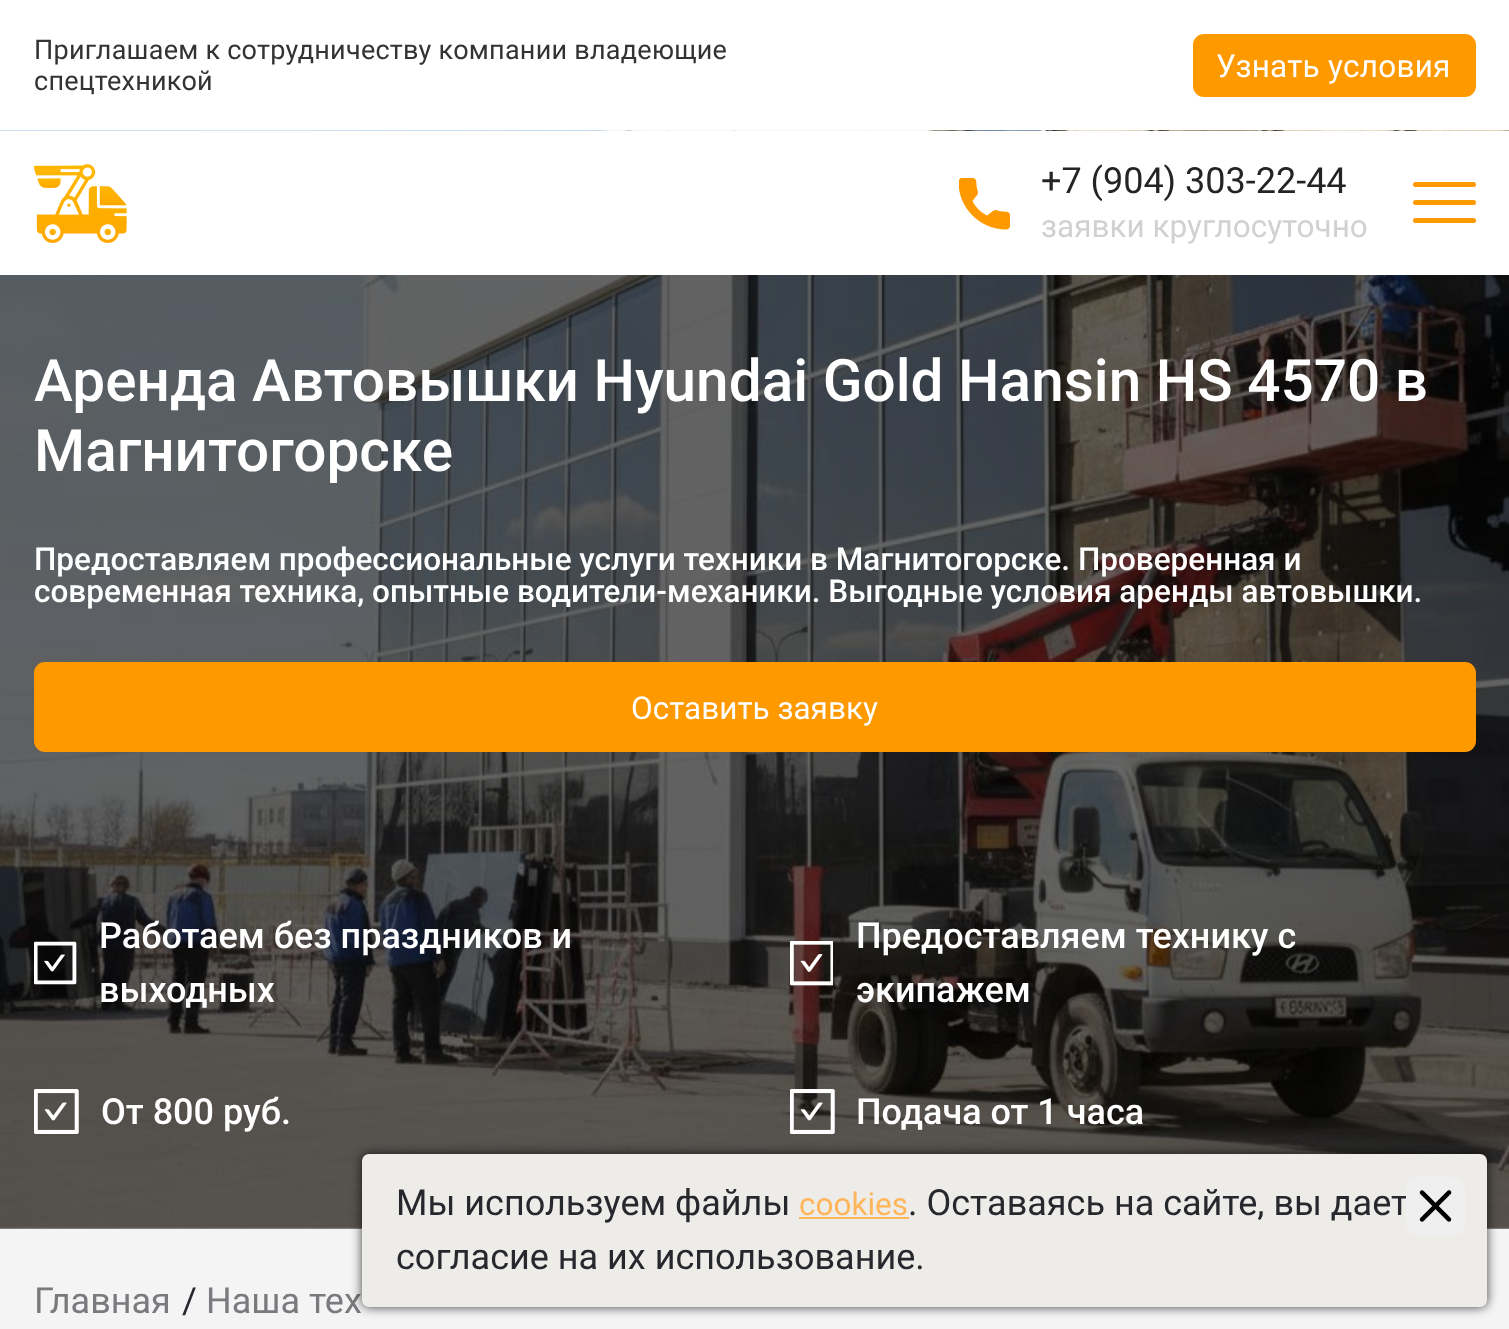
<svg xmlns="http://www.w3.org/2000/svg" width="1509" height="1329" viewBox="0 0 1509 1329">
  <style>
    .t1 { font: 27px Roboto; letter-spacing: 0.25px; fill: #333; }
    .t2 { font: 31.5px Roboto; letter-spacing: 0.25px; fill: #fff; }
    .t3 { font: 36px Roboto; fill: #242424; }
    .t4 { font: 31.5px Roboto; fill: #d1d1d1; }
    .t5 { font: 500 58.5px Roboto; fill: #fff; }
    .t6 { font: 500 31.5px Roboto; fill: #fff; }
    .t7 { font: 31.5px Roboto; fill: #fff; }
    .t8 { font: 500 36px Roboto; fill: #fff; }
    .t9 { font: 36px Roboto; fill: #797a7d; }
    .t10 { font: 36px Roboto; fill: #27282e; }
    .t11 { font: 31.5px Roboto; fill: #ffb559; }
  </style>
  <rect width="100%" height="100%" fill="#f4f4f4"/>
  <rect x="0" y="0" width="1509" height="130" fill="#fff"/>
  <text x="34" y="59" class="t1">Приглашаем к сотрудничеству компании владеющие</text>
  <text x="34" y="90" class="t1">спецтехникой</text>
  <rect x="1194" y="35" width="281" height="61" rx="10" fill="#f90" stroke="#f90" stroke-width="2"/>
  <text x="1216" y="77" class="t2">Узнать условия</text>
  <image x="0" y="130" width="1509" height="1099" href="images/3.png"/>
  <rect x="0" y="131" width="1509" height="144" fill="#fff"/>
  <image x="34" y="164" width="93" height="79" href="images/1.png"/>
  <image x="959" y="178" width="51" height="52" href="images/2.png"/>
  <text x="1041" y="193" class="t3">+7 (904) 303-22-44</text>
  <text x="1041" y="237" class="t4">заявки круглосуточно</text>
  <rect x="1413" y="182" width="63" height="5" rx="2.5" fill="#f90"/>
  <rect x="1413" y="200" width="63" height="5" rx="2.5" fill="#f90"/>
  <rect x="1413" y="218" width="63" height="5" rx="2.5" fill="#f90"/>
  <text x="34" y="401" class="t5">Аренда Автовышки Hyundai Gold Hansin HS 4570 в</text>
  <text x="34" y="471" class="t5">Магнитогорске</text>
  <text x="34" y="570" class="t6">Предоставляем профессиональные услуги техники в Магнитогорске. Проверенная и</text>
  <text x="34" y="602" class="t6">современная техника, опытные водители-механики. Выгодные условия аренды автовышки.</text>
  <rect x="35" y="663" width="1440" height="88" rx="10" fill="#f90" stroke="#f90" stroke-width="2"/>
  <text x="631" y="719" class="t7">Оставить заявку</text>
  <image x="34" y="941" width="43" height="44" href="images/4.png"/>
  <text x="99" y="948" class="t8">Работаем без праздников и</text>
  <text x="99" y="1002" class="t8">выходных</text>
  <image x="790" y="941" width="43" height="45" href="images/5.png"/>
  <text x="856" y="948" class="t8">Предоставляем технику с</text>
  <text x="856" y="1002" class="t8">экипажем</text>
  <image x="34" y="1089" width="45" height="45" href="images/6.png"/>
  <text x="101" y="1124" class="t8">От 800 руб.</text>
  <image x="790" y="1089" width="45" height="45" href="images/7.png"/>
  <text x="856" y="1124" class="t8">Подача от 1 часа</text>
  <text x="34" y="1313" class="t9">Главная</text>
  <text x="182" y="1313" class="t10">/</text>
  <text x="206" y="1313" class="t9">Наша тех</text>
  <rect x="362" y="1154" width="1125" height="153" rx="7" fill="#000000bf" filter="blur(5.5px)"/>
  <rect x="362" y="1154" width="1125" height="153" rx="7" fill="#eeece8"/>
  <text x="396" y="1215" class="t10">Мы используем файлы</text>
  <text x="799" y="1215" class="t11">cookies</text>
  <rect x="799" y="1217" width="110" height="2" fill="#ffb559"/>
  <text x="908" y="1215" class="t10">. Оставаясь на сайте, вы дает</text>
  <text x="396" y="1269" class="t10">согласие на их использование.</text>
  <rect x="1406" y="1177" width="59" height="58" rx="11" fill="#efefef"/>
  <image x="1419" y="1190" width="33" height="32" href="images/8.png"/>
</svg>
